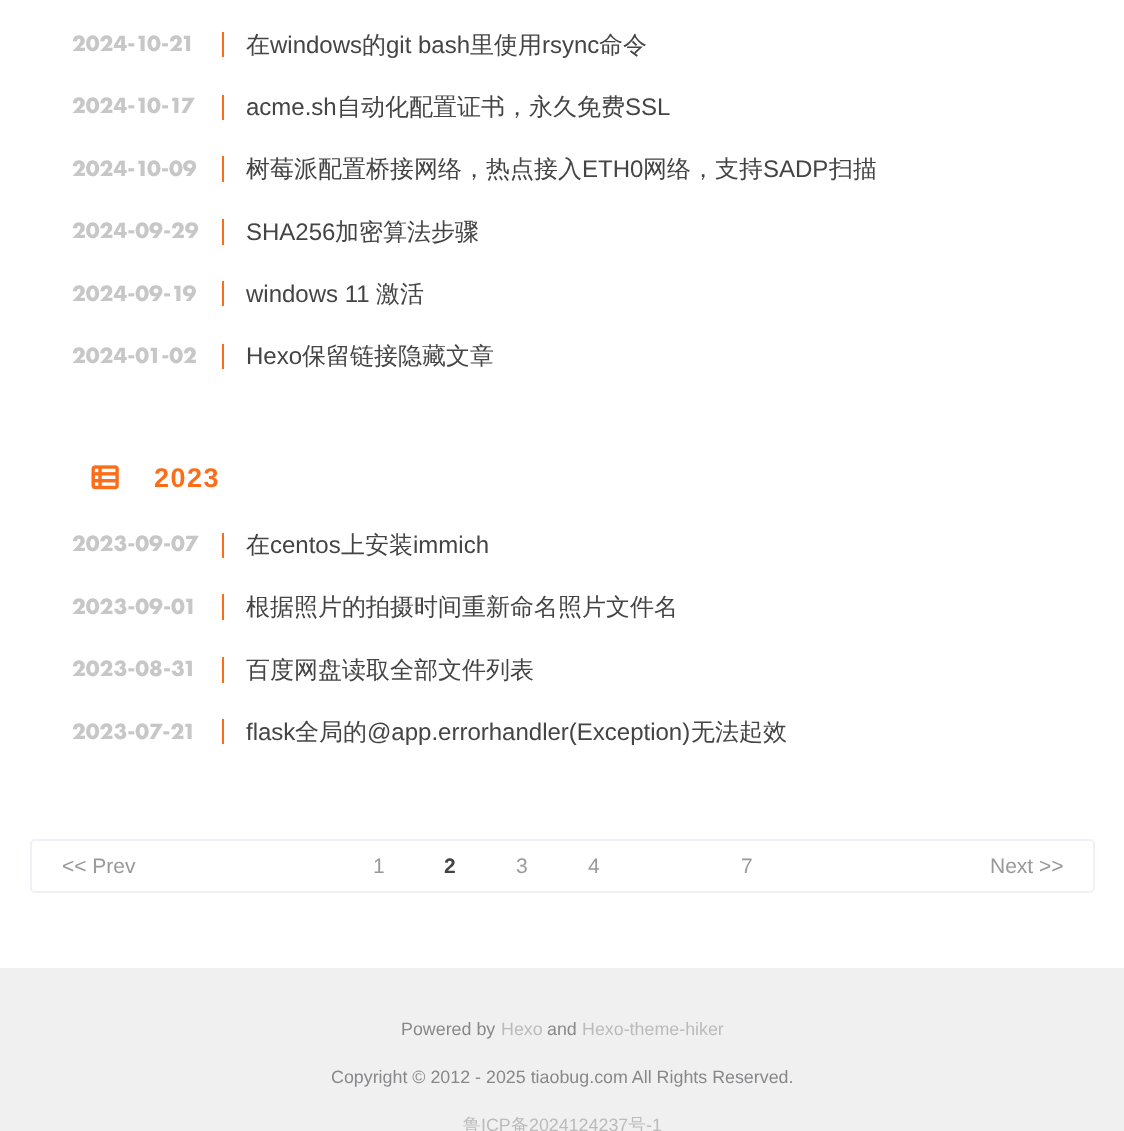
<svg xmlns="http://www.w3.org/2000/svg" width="1124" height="1131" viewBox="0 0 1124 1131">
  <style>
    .t1 { font: bold 23px Futura PT; fill: #c7c7c7; }
    .t2 { font: 500 24px WenQuanYi Zen Hei; fill: #444; }
    .t3 { font: 24px Liberation Sans; fill: #444; }
    .t4 { font: bold 27px Liberation Sans; letter-spacing: 1.5px; fill: #fb6d19; }
    .t5 { font: 21px Liberation Sans; fill: #999; }
    .t6 { font: bold 21px Liberation Sans; fill: #444; }
    .t7 { font: 17.85px Liberation Sans; fill: #88888b; }
    .t8 { font: 17.85px Liberation Sans; fill: #bbb; }
    .t9 { font: 500 17.85px WenQuanYi Zen Hei; fill: #bbb; }
  </style>
  <rect width="100%" height="100%" fill="#fff"/>
  <text x="72" y="51" class="t1">2024-10-21</text>
  <text x="246" y="53" class="t2">在</text>
  <rect x="222" y="32" width="2" height="25" fill="#fb6d19"/>
  <text x="270" y="53" class="t3">windows</text>
  <text x="362" y="53" class="t2">的</text>
  <text x="386" y="53" class="t3">git bash</text>
  <text x="470" y="53" class="t2">里使用</text>
  <text x="542" y="53" class="t3">rsync</text>
  <text x="599" y="53" class="t2">命令</text>
  <text x="72" y="113" class="t1">2024-10-17</text>
  <text x="246" y="115" class="t3">acme.sh</text>
  <rect x="222" y="95" width="2" height="25" fill="#fb6d19"/>
  <text x="337" y="115" class="t2">自动化配置证书，永久免费</text>
  <text x="625" y="115" class="t3">SSL</text>
  <text x="72" y="176" class="t1">2024-10-09</text>
  <text x="246" y="177" class="t2">树莓派配置桥接网络，热点接入</text>
  <rect x="222" y="156" width="2" height="26" fill="#fb6d19"/>
  <text x="582" y="177" class="t3">ETH0</text>
  <text x="643" y="177" class="t2">网络，支持</text>
  <text x="763" y="177" class="t3">SADP</text>
  <text x="829" y="177" class="t2">扫描</text>
  <text x="72" y="238" class="t1">2024-09-29</text>
  <text x="246" y="240" class="t3">SHA256</text>
  <rect x="222" y="219" width="2" height="26" fill="#fb6d19"/>
  <text x="335" y="240" class="t2">加密算法步骤</text>
  <text x="72" y="301" class="t1">2024-09-19</text>
  <text x="246" y="302" class="t3">windows 11</text>
  <rect x="222" y="281" width="2" height="25" fill="#fb6d19"/>
  <text x="376" y="302" class="t2">激活</text>
  <text x="72" y="363" class="t1">2024-01-02</text>
  <text x="246" y="364" class="t3">Hexo</text>
  <rect x="222" y="344" width="2" height="25" fill="#fb6d19"/>
  <text x="302" y="364" class="t2">保留链接隐藏文章</text>
  <image x="91" y="465" width="28" height="25" href="images/1.png"/>
  <text x="154" y="487" class="t4">2023</text>
  <text x="72" y="551" class="t1">2023-09-07</text>
  <text x="246" y="553" class="t2">在</text>
  <rect x="222" y="533" width="2" height="25" fill="#fb6d19"/>
  <text x="270" y="553" class="t3">centos</text>
  <text x="341" y="553" class="t2">上安装</text>
  <text x="413" y="553" class="t3">immich</text>
  <text x="72" y="614" class="t1">2023-09-01</text>
  <text x="246" y="615" class="t2">根据照片的拍摄时间重新命名照片文件名</text>
  <rect x="222" y="594" width="2" height="26" fill="#fb6d19"/>
  <text x="72" y="676" class="t1">2023-08-31</text>
  <text x="246" y="678" class="t2">百度网盘读取全部文件列表</text>
  <rect x="222" y="657" width="2" height="26" fill="#fb6d19"/>
  <text x="72" y="739" class="t1">2023-07-21</text>
  <text x="246" y="740" class="t3">flask</text>
  <rect x="222" y="719" width="2" height="25" fill="#fb6d19"/>
  <text x="295" y="740" class="t2">全局的</text>
  <text x="367" y="740" class="t3">@app.errorhandler(Exception)</text>
  <text x="691" y="740" class="t2">无法起效</text>
  <rect x="31" y="840" width="1063" height="52" rx="4" fill="none" stroke="#eef1f8" stroke-width="2"/>
  <text x="62" y="873" class="t5">&lt;&lt; Prev</text>
  <text x="373" y="873" class="t5">1</text>
  <text x="444" y="873" class="t6">2</text>
  <text x="516" y="873" class="t5">3</text>
  <text x="588" y="873" class="t5">4</text>
  <text x="741" y="873" class="t5">7</text>
  <text x="990" y="873" class="t5">Next &gt;&gt;</text>
  <rect x="0" y="968" width="1124" height="163" fill="#f0f0f0"/>
  <text x="401" y="1035" class="t7">Powered by</text>
  <text x="501" y="1035" class="t8">Hexo</text>
  <text x="547" y="1035" class="t7">and</text>
  <text x="582" y="1035" class="t8">Hexo-theme-hiker</text>
  <text x="331" y="1083" class="t7">Copyright © 2012 - 2025 tiaobug.com All Rights Reserved.</text>
  <text x="463" y="1131" class="t9">鲁</text>
  <text x="481" y="1131" class="t8">ICP</text>
  <text x="511" y="1131" class="t9">备</text>
  <text x="529" y="1131" class="t8">2024124237</text>
  <text x="628" y="1131" class="t9">号</text>
  <text x="646" y="1131" class="t8">-1</text>
</svg>
